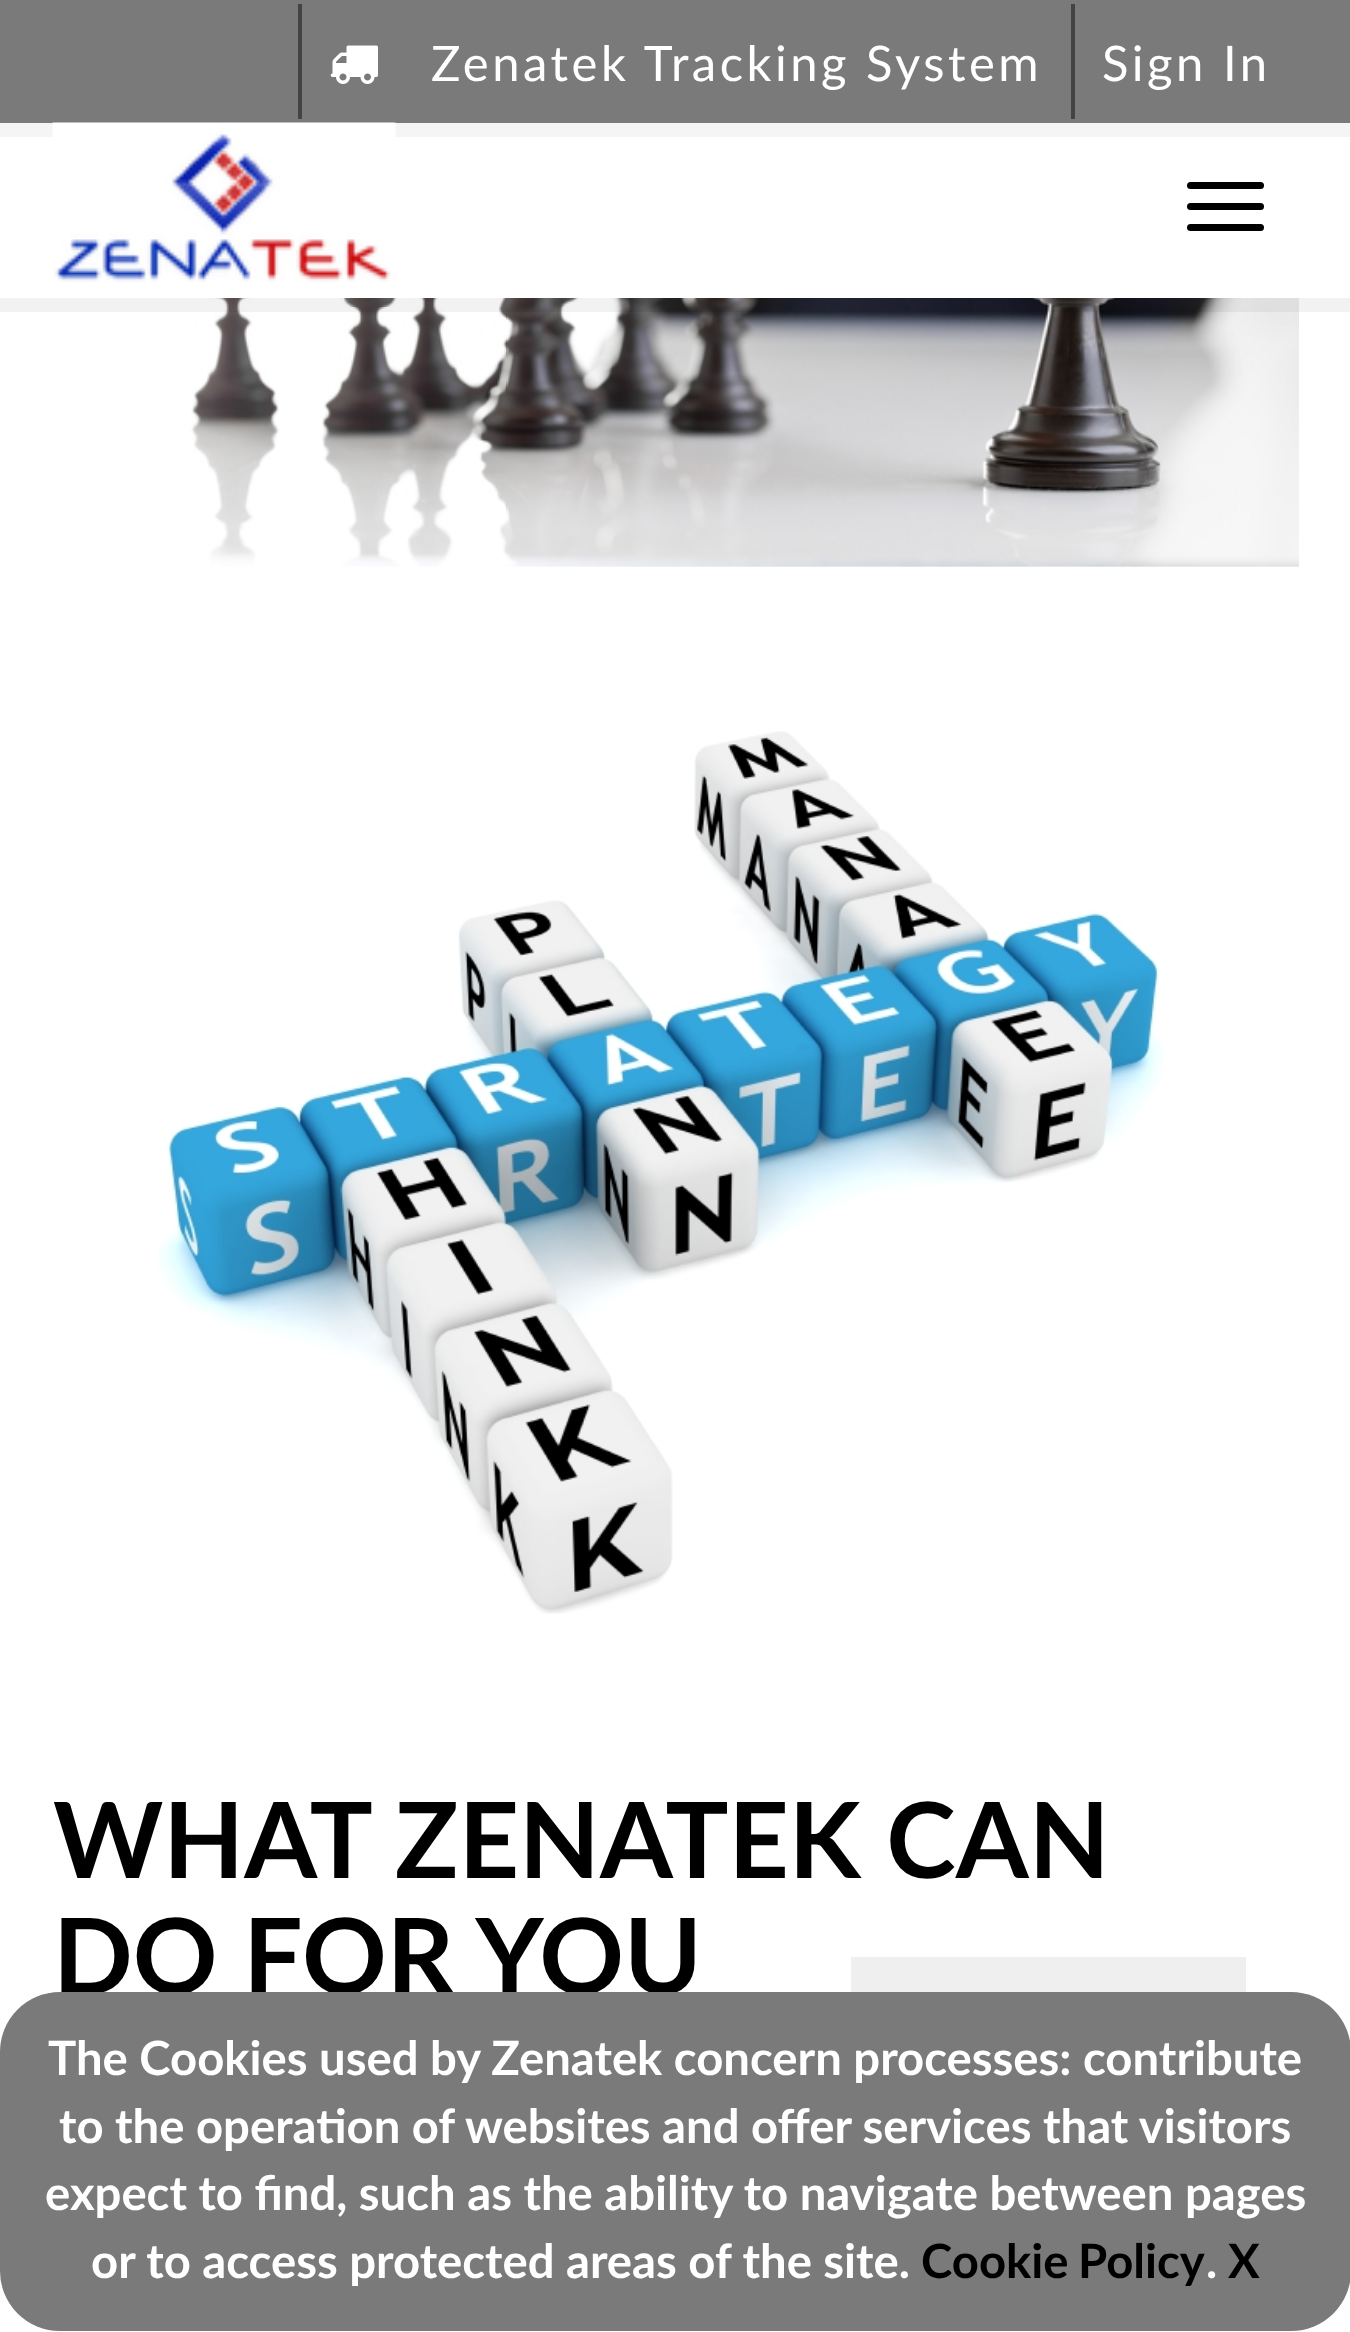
<svg xmlns="http://www.w3.org/2000/svg" width="1350" height="2332" viewBox="0 0 1350 2332">
  <style>
    .t1 { font: 49px Lato; letter-spacing: 3.5px; fill: #fff; }
    .t2 { font: bold 105px Lato; fill: #000; }
    .t3 { font: bold 47.25px Lato; fill: #fff; }
    .t4 { font: bold 47.25px Lato; fill: #000; }
  </style>
  <rect width="100%" height="100%" fill="#fff"/>
  <image x="114" y="298" width="1185" height="269" href="images/3.png"/>
  <rect x="0" y="298" width="1350" height="14" fill="#0000000d"/>
  <rect x="0" y="123" width="1350" height="14" fill="#f5f5f5"/>
  <rect x="0" y="0" width="1350" height="123" fill="#7a7a7a"/>
  <rect x="298" y="4" width="4" height="115" fill="#434343"/>
  <image x="330" y="45" width="48" height="39" href="images/1.png"/>
  <text x="431" y="81" class="t1">Zenatek Tracking System</text>
  <rect x="1071" y="4" width="4" height="115" fill="#434343"/>
  <text x="1102" y="81" class="t1">Sign In</text>
  <image x="52" y="122" width="345" height="160" href="images/2.png"/>
  <rect x="1187" y="182" width="77" height="7" rx="3.5" fill="#000"/>
  <rect x="1187" y="203" width="77" height="7" rx="3.5" fill="#000"/>
  <rect x="1187" y="224" width="77" height="7" rx="3.5" fill="#000"/>
  <image x="157" y="731" width="1007" height="883" href="images/4.png"/>
  <text x="53" y="1878" class="t2">WHAT ZENATEK CAN</text>
  <text x="53" y="1994" class="t2">DO FOR YOU</text>
  <rect x="851" y="1957" width="395" height="35" fill="#ebebebcc"/>
  <rect x="0" y="1992" width="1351" height="339" rx="60" fill="#7a7a7a"/>
  <text x="48" y="2075" class="t3">The Cookies used by Zenatek concern processes: contribute</text>
  <text x="59" y="2143" class="t3">to the operation of websites and offer services that visitors</text>
  <text x="45" y="2210" class="t3">expect to find, such as the ability to navigate between pages</text>
  <text x="91" y="2278" class="t3">or to access protected areas of the site.</text>
  <text x="921" y="2278" word-spacing="-2" class="t4">Cookie Policy</text>
  <text x="1206" y="2278" class="t3">.</text>
  <text x="1228" y="2278" class="t4">X</text>
</svg>
